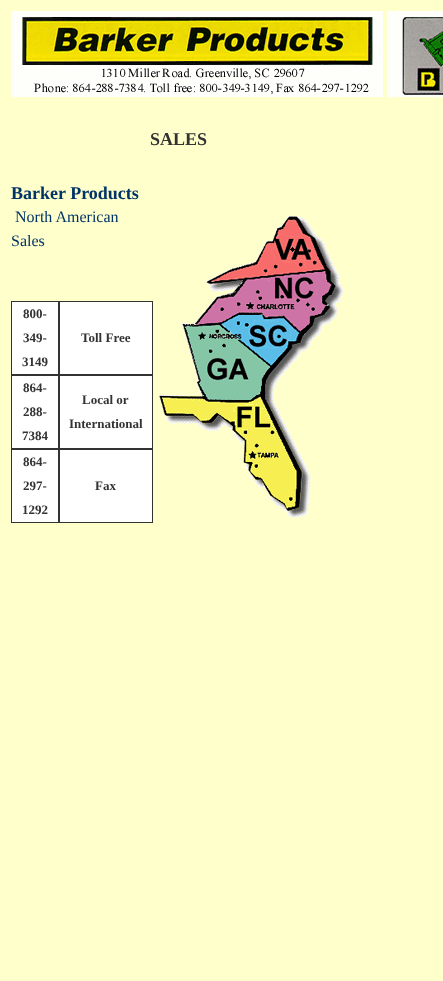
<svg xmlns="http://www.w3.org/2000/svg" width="443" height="981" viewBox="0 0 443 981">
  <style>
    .t1 { font: bold 18px Liberation Serif; fill: #333; }
    .t2 { font: bold 18px Liberation Serif; fill: #036; }
    .t3 { font: 16px Liberation Serif; fill: #036; }
    .t4 { font: bold 13px Liberation Serif; fill: #333; }
  </style>
  <rect width="100%" height="100%" fill="#ffc"/>
  <image x="11" y="11" width="372" height="86" href="images/1.png"/>
  <image x="387" y="11" width="56" height="86" href="images/2.png"/>
  <text x="150" y="145" class="t1">SALES</text>
  <text x="11" y="199" class="t2">Barker Products</text>
  <text x="15" y="222" class="t3">North American</text>
  <text x="11" y="246" class="t3">Sales</text>
  <rect x="12" y="302" width="140" height="72" fill="#fff"/>
  <rect x="11.5" y="301.5" width="47" height="73" fill="none" stroke="#333"/>
  <text x="23" y="318" class="t4">800-</text>
  <text x="23" y="342" class="t4">349-</text>
  <text x="22" y="366" class="t4">3149</text>
  <rect x="59.5" y="301.5" width="93" height="73" fill="none" stroke="#333"/>
  <text x="81" y="342" class="t4">Toll Free</text>
  <rect x="12" y="376" width="140" height="72" fill="#fff"/>
  <rect x="11.5" y="375.5" width="47" height="73" fill="none" stroke="#333"/>
  <text x="23" y="392" class="t4">864-</text>
  <text x="23" y="416" class="t4">288-</text>
  <text x="22" y="440" class="t4">7384</text>
  <rect x="59.5" y="375.5" width="93" height="73" fill="none" stroke="#333"/>
  <text x="82" y="404" class="t4">Local or</text>
  <text x="69" y="428" class="t4">International</text>
  <rect x="12" y="450" width="140" height="72" fill="#fff"/>
  <rect x="11.5" y="449.5" width="47" height="73" fill="none" stroke="#333"/>
  <text x="23" y="466" class="t4">864-</text>
  <text x="23" y="490" class="t4">297-</text>
  <text x="22" y="514" class="t4">1292</text>
  <rect x="59.5" y="449.5" width="93" height="73" fill="none" stroke="#333"/>
  <text x="95" y="490" class="t4">Fax</text>
  <image x="159" y="216" width="185" height="303" href="images/3.png"/>
</svg>
